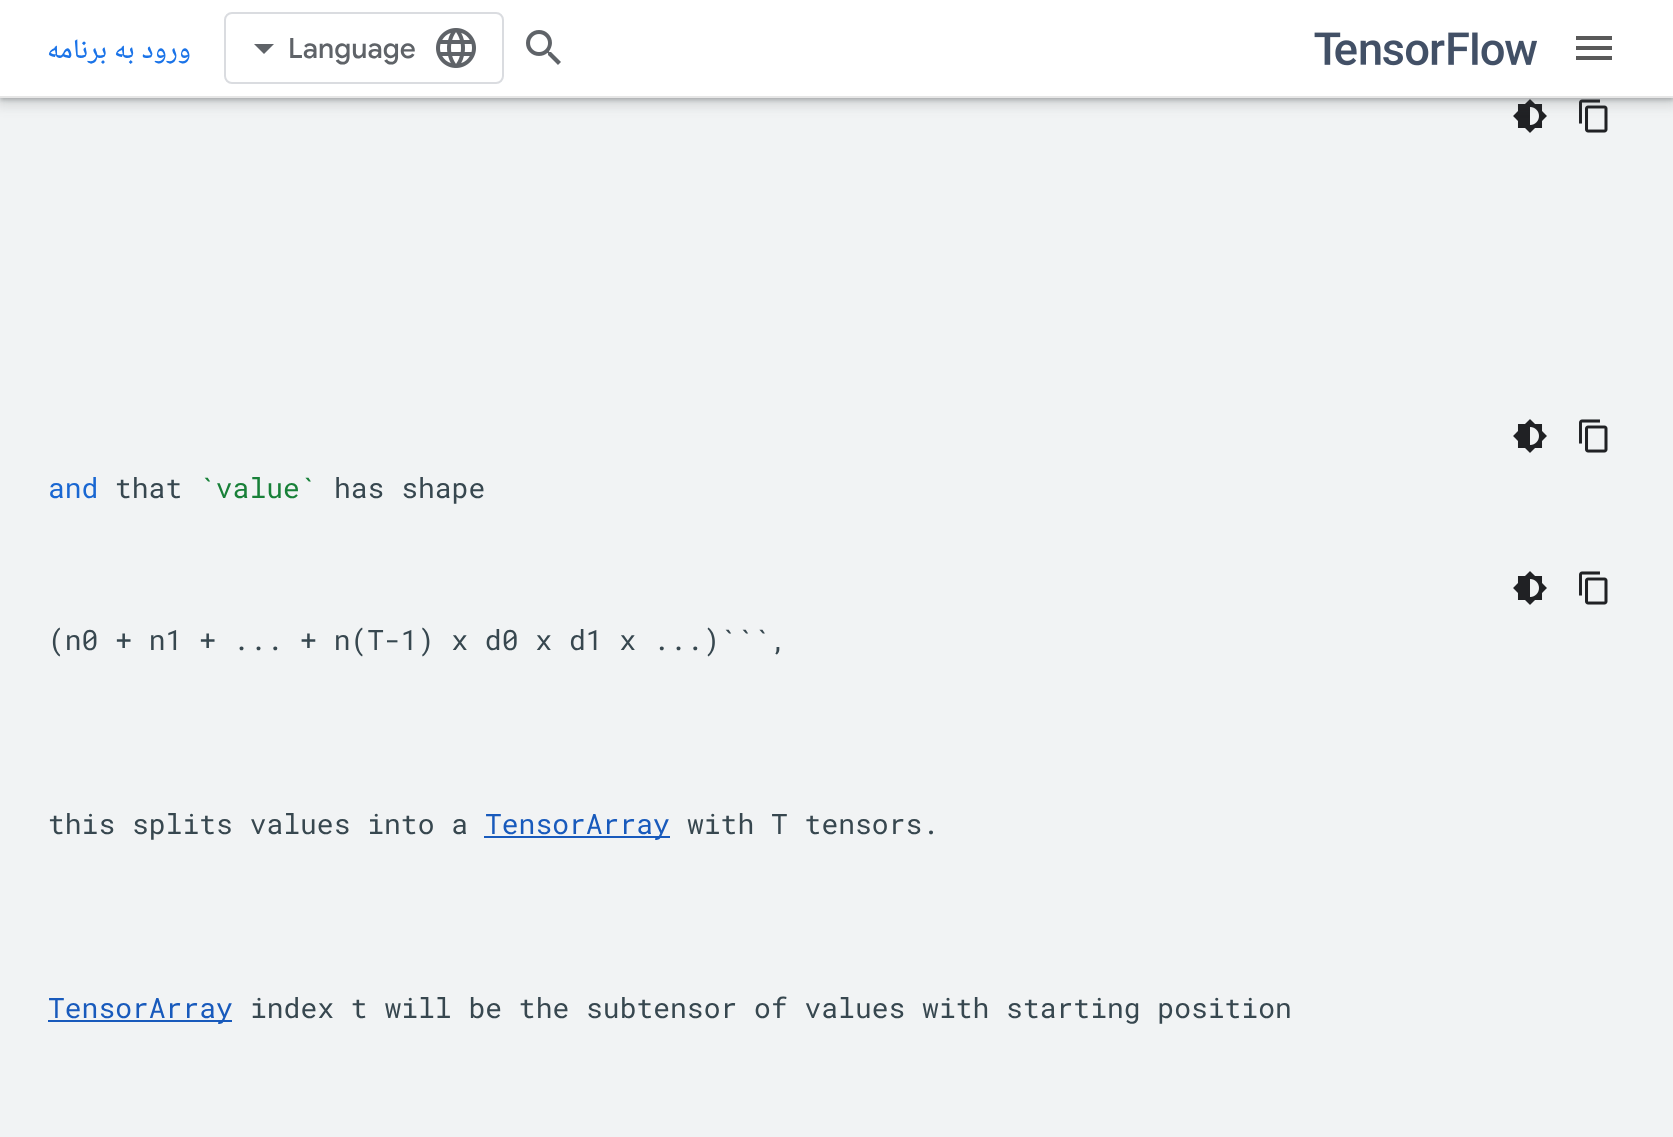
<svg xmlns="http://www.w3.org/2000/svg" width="1673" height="1137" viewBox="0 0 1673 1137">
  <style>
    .t1 { font: 500 28px Noto Naskh Arabic; direction: rtl; fill: #1a73e8; }
    .t2 { font: 500 28px Google Sans; fill: #5f6368; }
    .t3 { font: 28px Roboto Mono; fill: #1967d2; }
    .t4 { font: 28px Roboto Mono; fill: #37474f; }
    .t5 { font: 28px Roboto Mono; fill: #188038; }
    .t6 { font: 28px Roboto Mono; fill: #185abc; }
  </style>
  <rect width="100%" height="100%" fill="#f1f3f4"/>
  <image x="1513" y="99" width="34" height="34" href="images/4.png"/>
  <image x="1579" y="99" width="29" height="34" href="images/5.png"/>
  <rect x="-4" y="-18" width="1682" height="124" fill="#3c404326" filter="blur(6px)"/>
  <rect x="0" y="-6" width="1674" height="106" fill="#3c40434d" filter="blur(2px)"/>
  <rect x="0" y="0" width="1673" height="96" fill="#fff"/>
  <rect x="0" y="96" width="1673" height="2" fill="#e6e6e6"/>
  <text x="191" y="58" word-spacing="1" class="t1">ورود به برنامه</text>
  <rect x="225" y="13" width="278" height="70" rx="7" fill="none" stroke="#dadce0" stroke-width="2"/>
  <path d="M264 54L254 44H274Z" fill="#5f6368"/>
  <text x="288" y="58" class="t2">Language</text>
  <image x="436" y="28" width="40" height="40" href="images/1.png"/>
  <image x="526" y="30" width="35" height="35" href="images/2.png"/>
  <image x="1314" y="32" width="223" height="34" href="images/3.png"/>
  <path d="M1576 36H1612V40H1576ZM1576 50V46H1612V50ZM1576 60V56H1612V60Z" fill="#595959"/>
  <image x="1513" y="419" width="34" height="34" href="images/4.png"/>
  <image x="1579" y="419" width="29" height="34" href="images/5.png"/>
  <text x="48" y="498" class="t3">and</text>
  <text x="115" y="498" class="t4">that</text>
  <text x="199" y="498" class="t5">`value`</text>
  <text x="334" y="498" class="t4">has shape</text>
  <image x="1513" y="571" width="34" height="34" href="images/4.png"/>
  <image x="1579" y="571" width="29" height="34" href="images/5.png"/>
  <text x="48" y="650" class="t4">(n0 + n1 + ... + n(T-1) x d0 x d1 x ...)```,</text>
  <text x="48" y="834" class="t4">this splits values into a</text>
  <rect x="484" y="836" width="186" height="2" fill="#185abc"/>
  <text x="485" y="834" class="t6">TensorArray</text>
  <text x="687" y="834" class="t4">with T tensors.</text>
  <rect x="48" y="1020" width="184" height="2" fill="#185abc"/>
  <text x="48" y="1018" class="t6">TensorArray</text>
  <text x="250" y="1018" class="t4">index t will be the subtensor of values with starting position</text>
</svg>
